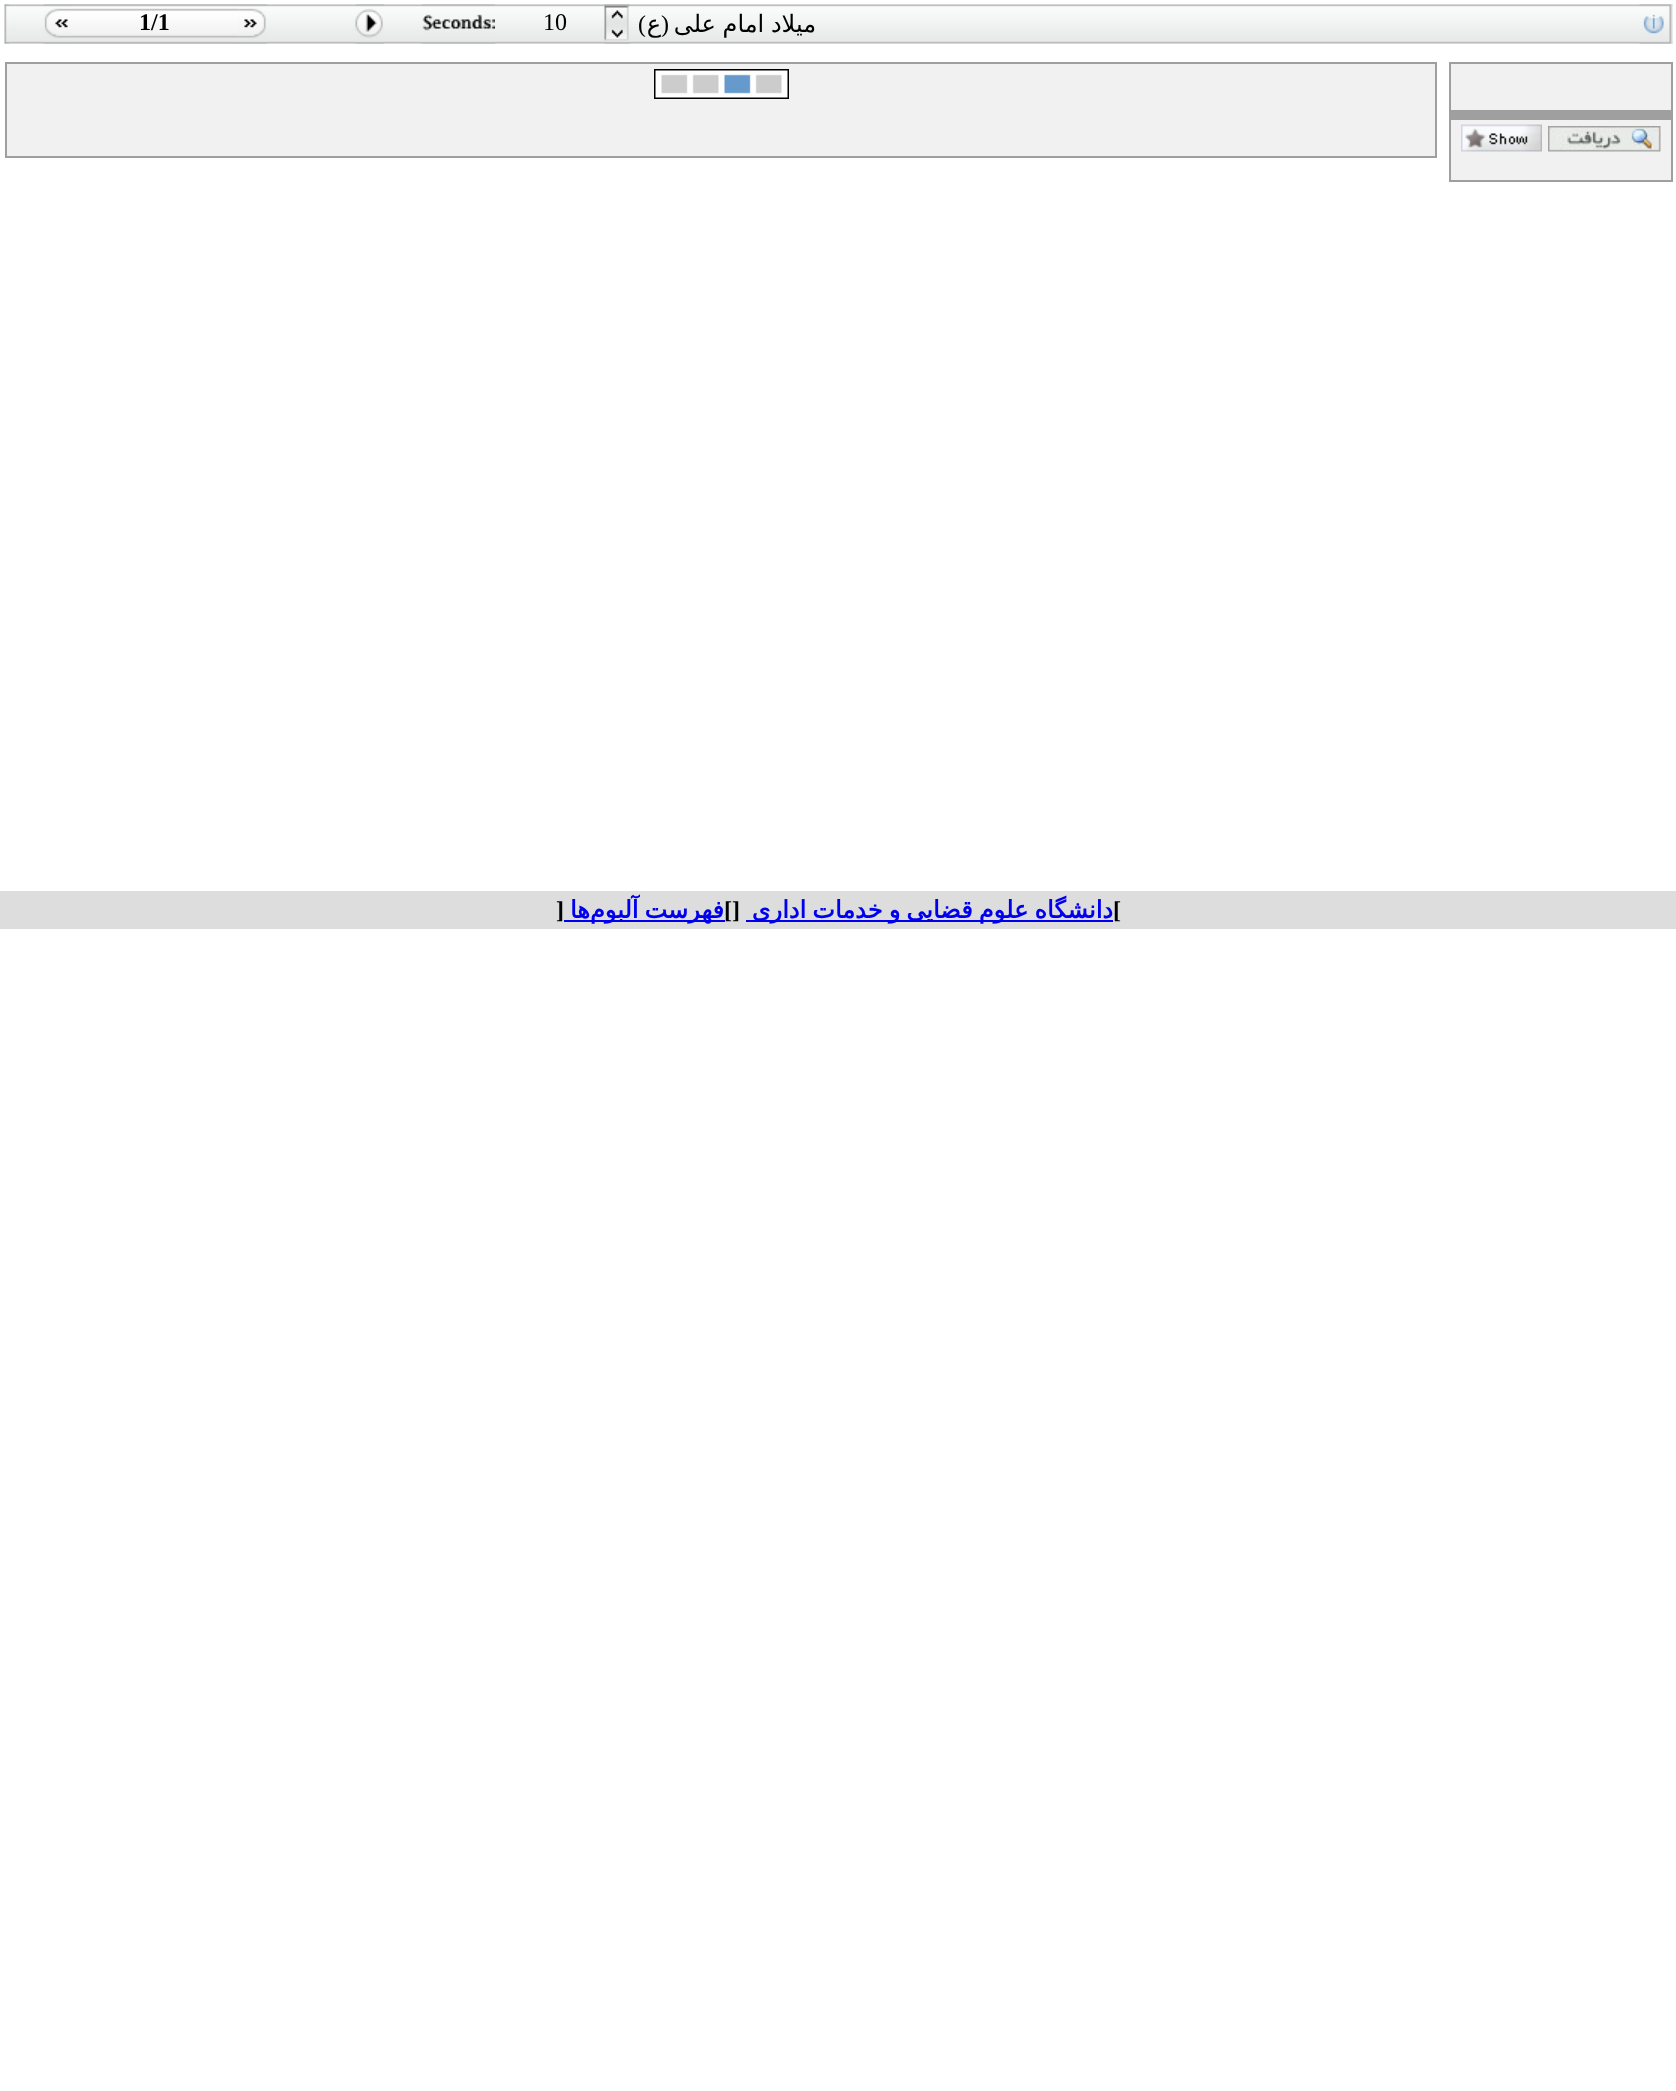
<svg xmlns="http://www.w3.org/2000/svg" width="1676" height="2091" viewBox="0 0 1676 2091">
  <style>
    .t1 { font: 24px DejaVu Sans; direction: rtl; fill: #000; }
    .t2 { font: 24px Liberation Serif; direction: rtl; fill: #000; }
    .t3 { font: 24px Liberation Serif; fill: #000; }
    .t4 { font: bold 24px Liberation Serif; fill: #000; }
    .t5 { font: bold 24px DejaVu Sans; direction: rtl; fill: #00e; }
  </style>
  <rect width="100%" height="100%" fill="#fff"/>
  <image x="4" y="4" width="1669" height="40" href="images/1.png"/>
  <image x="1639" y="4" width="34" height="40" href="images/2.png"/>
  <text x="816" y="32" word-spacing="-1" class="t1">میلاد امام علی</text>
  <text x="669" y="32" class="t2">(</text>
  <text x="661" y="32" class="t1">ع</text>
  <text x="646" y="32" class="t2">)</text>
  <image x="604" y="4" width="26" height="20" href="images/3.png"/>
  <image x="604" y="24" width="26" height="20" href="images/4.png"/>
  <text x="543" y="30" class="t3">10</text>
  <image x="421" y="4" width="74" height="40" href="images/5.png"/>
  <image x="355" y="4" width="29" height="40" href="images/6.png"/>
  <image x="72" y="4" width="167" height="40" href="images/8.png"/>
  <image x="238" y="4" width="29" height="40" href="images/7.png"/>
  <text x="139" y="30" class="t4">1/1</text>
  <image x="43" y="4" width="29" height="40" href="images/9.png"/>
  <image x="4" y="4" width="5" height="40" href="images/10.png"/>
  <rect x="1450" y="63" width="222" height="118" fill="#f2f1f1" stroke="#9f9f9f" stroke-width="2"/>
  <rect x="1451" y="110" width="220" height="10" fill="#9f9f9f"/>
  <image x="1548" y="126" width="113" height="26" href="images/11.png"/>
  <image x="1461" y="124" width="81" height="28" href="images/12.png"/>
  <rect x="6" y="63" width="1430" height="94" fill="#f2f1f1" stroke="#9f9f9f" stroke-width="2"/>
  <image x="654" y="69" width="135" height="30" href="images/13.png"/>
  <rect x="0" y="891" width="1676" height="38" fill="#ddd"/>
  <text x="1113" y="918" class="t4">[</text>
  <rect x="746" y="920" width="367" height="2" fill="#00e"/>
  <text x="1113" y="918" word-spacing="-1.5" class="t5">دانشگاه علوم قضایی و خدمات اداری</text>
  <text x="732" y="918" class="t4">]</text>
  <text x="724" y="918" class="t4">[</text>
  <rect x="564" y="920" width="161" height="2" fill="#00e"/>
  <text x="724" y="918" word-spacing="-1.5" class="t5">فهرست آلبوم</text>
  <text x="590" y="918" class="t5">ها</text>
  <text x="556" y="918" class="t4">]</text>
</svg>
